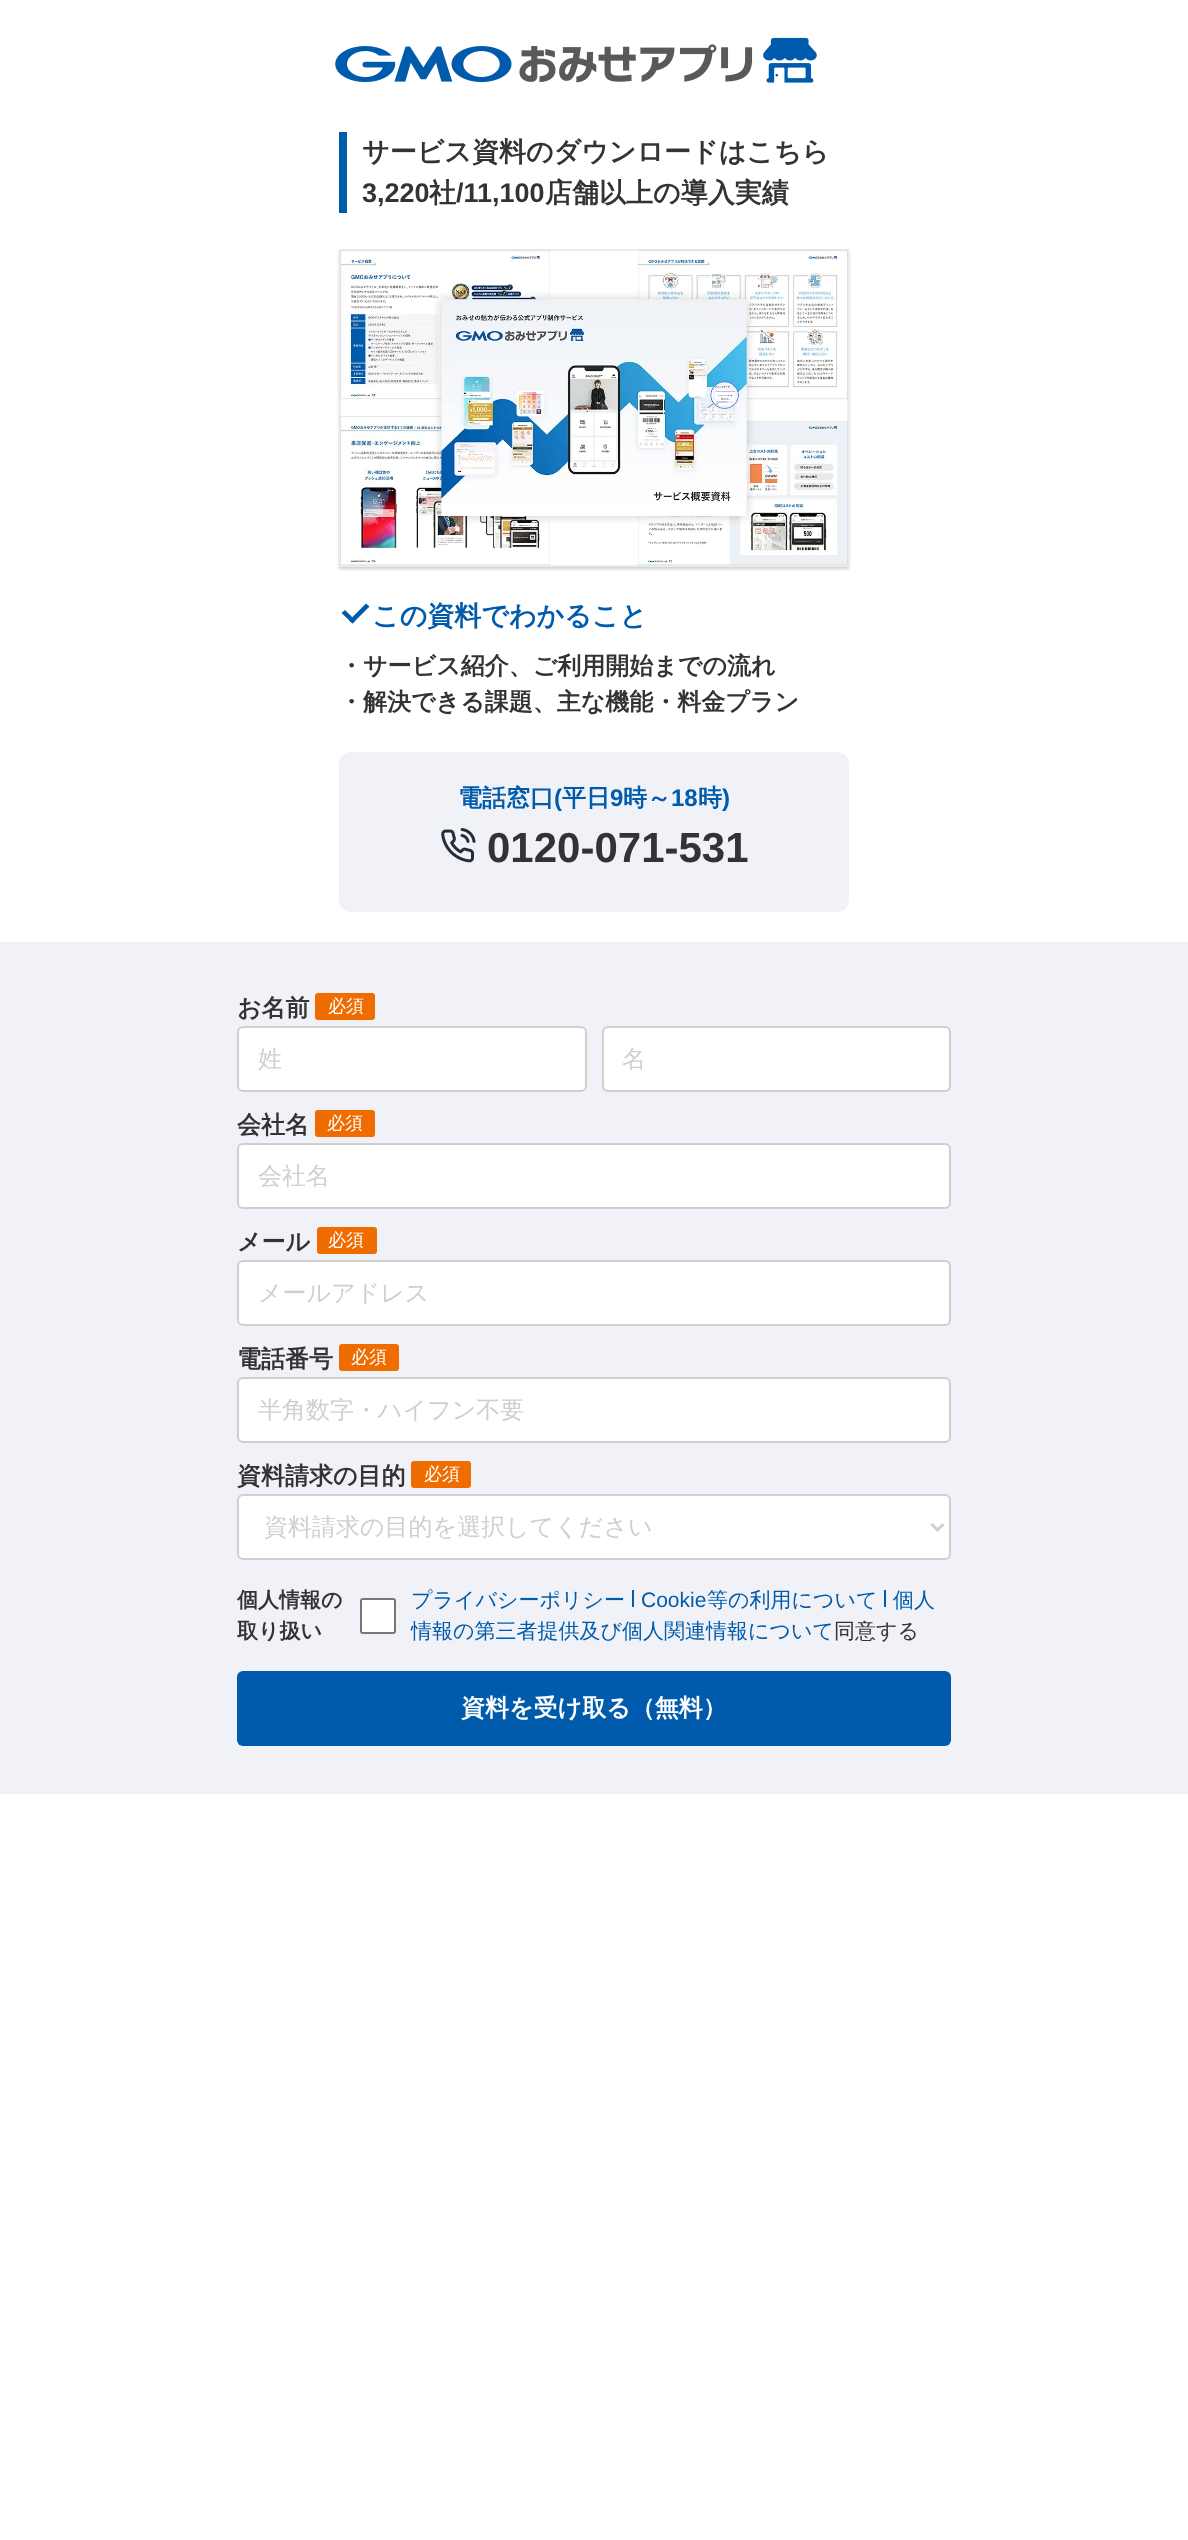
<svg xmlns="http://www.w3.org/2000/svg" width="1188" height="2540" viewBox="0 0 1188 2540">
  <style>
    .t1 { font: bold 27px WenQuanYi Zen Hei; fill: #333; }
    .t2 { font: bold 27px Liberation Sans; fill: #333; }
    .t3 { font: bold 27px WenQuanYi Zen Hei; fill: #005bac; }
    .t4 { font: bold 24px WenQuanYi Zen Hei; fill: #333; }
    .t5 { font: bold 24px WenQuanYi Zen Hei; fill: #005bac; }
    .t6 { font: bold 24px Liberation Sans; fill: #005bac; }
    .t7 { font: bold 42px Liberation Sans; fill: #333; }
    .t8 { font: 500 18px WenQuanYi Zen Hei; fill: #fff; }
    .t9 { font: 500 24px WenQuanYi Zen Hei; fill: #cfcfcf; }
    .t10 { font: bold 21px WenQuanYi Zen Hei; fill: #333; }
    .t11 { font: 500 21px WenQuanYi Zen Hei; fill: #005bac; }
    .t12 { font: 21px Liberation Sans; fill: #005bac; }
    .t13 { font: 500 21px WenQuanYi Zen Hei; fill: #333; }
    .t14 { font: bold 24px WenQuanYi Zen Hei; fill: #fff; }
  </style>
  <defs>
    <clipPath id="clip1"><path d="M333 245H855V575H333ZM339 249H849V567H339Z" clip-rule="evenodd"/></clipPath>
  </defs>
  <rect width="100%" height="100%" fill="#fff"/>
  <image x="335" y="37" width="482" height="46" href="images/1.png"/>
  <rect x="339" y="132" width="8" height="81" fill="#005bac"/>
  <text x="362" y="161" class="t1">サービス資料のダウンロードはこちら</text>
  <text x="362" y="202" class="t2">3,220</text>
  <text x="429" y="202" class="t1">社</text>
  <text x="456" y="202" class="t2">/11,100</text>
  <text x="545" y="202" class="t1">店舗以上の導入実績</text>
  <g clip-path="url(#clip1)">
    <rect x="339" y="251" width="510" height="318" fill="#cfcfcf" filter="blur(1.5px)"/>
  </g>
  <rect x="340" y="250" width="508" height="316" fill="none" stroke="#ececec" stroke-width="2"/>
  <image x="340" y="250" width="508" height="316" href="images/2.png"/>
  <path d="M366 603.5L369.5 606.5L352.5 623.5L349 620.5Z" fill="#005bac"/>
  <path d="M345 610L355.5 620.5L352.5 623.5L341.5 613Z" fill="#005bac"/>
  <text x="372" y="625" class="t3">この資料でわかること</text>
  <text x="339" y="674" class="t4">・サービス紹介、ご利用開始までの流れ</text>
  <text x="339" y="710" class="t4">・解決できる課題、主な機能・料金プラン</text>
  <rect x="339" y="752" width="510" height="160" rx="12" fill="#f0f2f8"/>
  <text x="458" y="806" class="t5">電話窓口</text>
  <text x="554" y="806" class="t6">(</text>
  <text x="562" y="806" class="t5">平日</text>
  <text x="610" y="806" class="t6">9</text>
  <text x="623" y="806" class="t5">時～</text>
  <text x="671" y="806" class="t6">18</text>
  <text x="698" y="806" class="t5">時</text>
  <text x="722" y="806" class="t6">)</text>
  <image x="441" y="828" width="35" height="35" href="images/3.png"/>
  <text x="487" y="862" class="t7">0120-071-531</text>
  <rect x="0" y="942" width="1188" height="852" fill="#f0f2f8"/>
  <text x="237" y="1016" class="t4">お名前</text>
  <rect x="315" y="993" width="60" height="27" rx="3" fill="#ef6c00"/>
  <text x="328" y="1012" class="t8">必須</text>
  <rect x="238" y="1027" width="348" height="64" rx="5" fill="#fff" stroke="#cfcfcf" stroke-width="2"/>
  <text x="258" y="1067" class="t9">姓</text>
  <rect x="603" y="1027" width="347" height="64" rx="5" fill="#fff" stroke="#cfcfcf" stroke-width="2"/>
  <text x="622" y="1067" class="t9">名</text>
  <text x="237" y="1133" class="t4">会社名</text>
  <rect x="315" y="1110" width="60" height="27" rx="3" fill="#ef6c00"/>
  <text x="327" y="1129" class="t8">必須</text>
  <rect x="238" y="1144" width="712" height="64" rx="5" fill="#fff" stroke="#cfcfcf" stroke-width="2"/>
  <text x="258" y="1184" class="t9">会社名</text>
  <text x="237" y="1250" class="t4">メール</text>
  <rect x="317" y="1227" width="60" height="27" rx="3" fill="#ef6c00"/>
  <text x="328" y="1246" class="t8">必須</text>
  <rect x="238" y="1261" width="712" height="64" rx="5" fill="#fff" stroke="#cfcfcf" stroke-width="2"/>
  <text x="258" y="1301" class="t9">メールアドレス</text>
  <text x="237" y="1367" class="t4">電話番号</text>
  <rect x="339" y="1344" width="60" height="27" rx="3" fill="#ef6c00"/>
  <text x="351" y="1363" class="t8">必須</text>
  <rect x="238" y="1378" width="712" height="64" rx="5" fill="#fff" stroke="#cfcfcf" stroke-width="2"/>
  <text x="258" y="1418" class="t9">半角数字・ハイフン不要</text>
  <text x="237" y="1484" class="t4">資料請求の目的</text>
  <rect x="411" y="1461" width="60" height="27" rx="3" fill="#ef6c00"/>
  <text x="424" y="1480" class="t8">必須</text>
  <rect x="238" y="1495" width="712" height="64" rx="5" fill="#fff" stroke="#cfcfcf" stroke-width="2"/>
  <path d="M931.5 1524L937.5 1530L943.5 1524" fill="none" stroke="#cfcfcf" stroke-width="3"/>
  <text x="264" y="1535" class="t9">資料請求の目的を選択してください</text>
  <text x="237" y="1607" class="t10">個人情報の</text>
  <text x="237" y="1638" class="t10">取り扱い</text>
  <rect x="361" y="1599" width="34" height="34" rx="2" fill="#fff" stroke="#767676" stroke-width="2"/>
  <text x="411" y="1607" class="t11">プライバシーポリシー</text>
  <rect x="632" y="1590" width="2" height="17" fill="#005bac"/>
  <text x="641" y="1607" class="t12">Cookie</text>
  <text x="707" y="1607" class="t11">等の利用について</text>
  <rect x="884" y="1590" width="2" height="17" fill="#005bac"/>
  <text x="893" y="1607" class="t11">個人</text>
  <text x="411" y="1638" class="t11">情報の第三者提供及び個人関連情報について</text>
  <text x="834" y="1638" class="t13">同意する</text>
  <rect x="237" y="1671" width="714" height="75" rx="6" fill="#005bac"/>
  <text x="461" y="1716" class="t14">資料を受け取る（無料）</text>
</svg>
